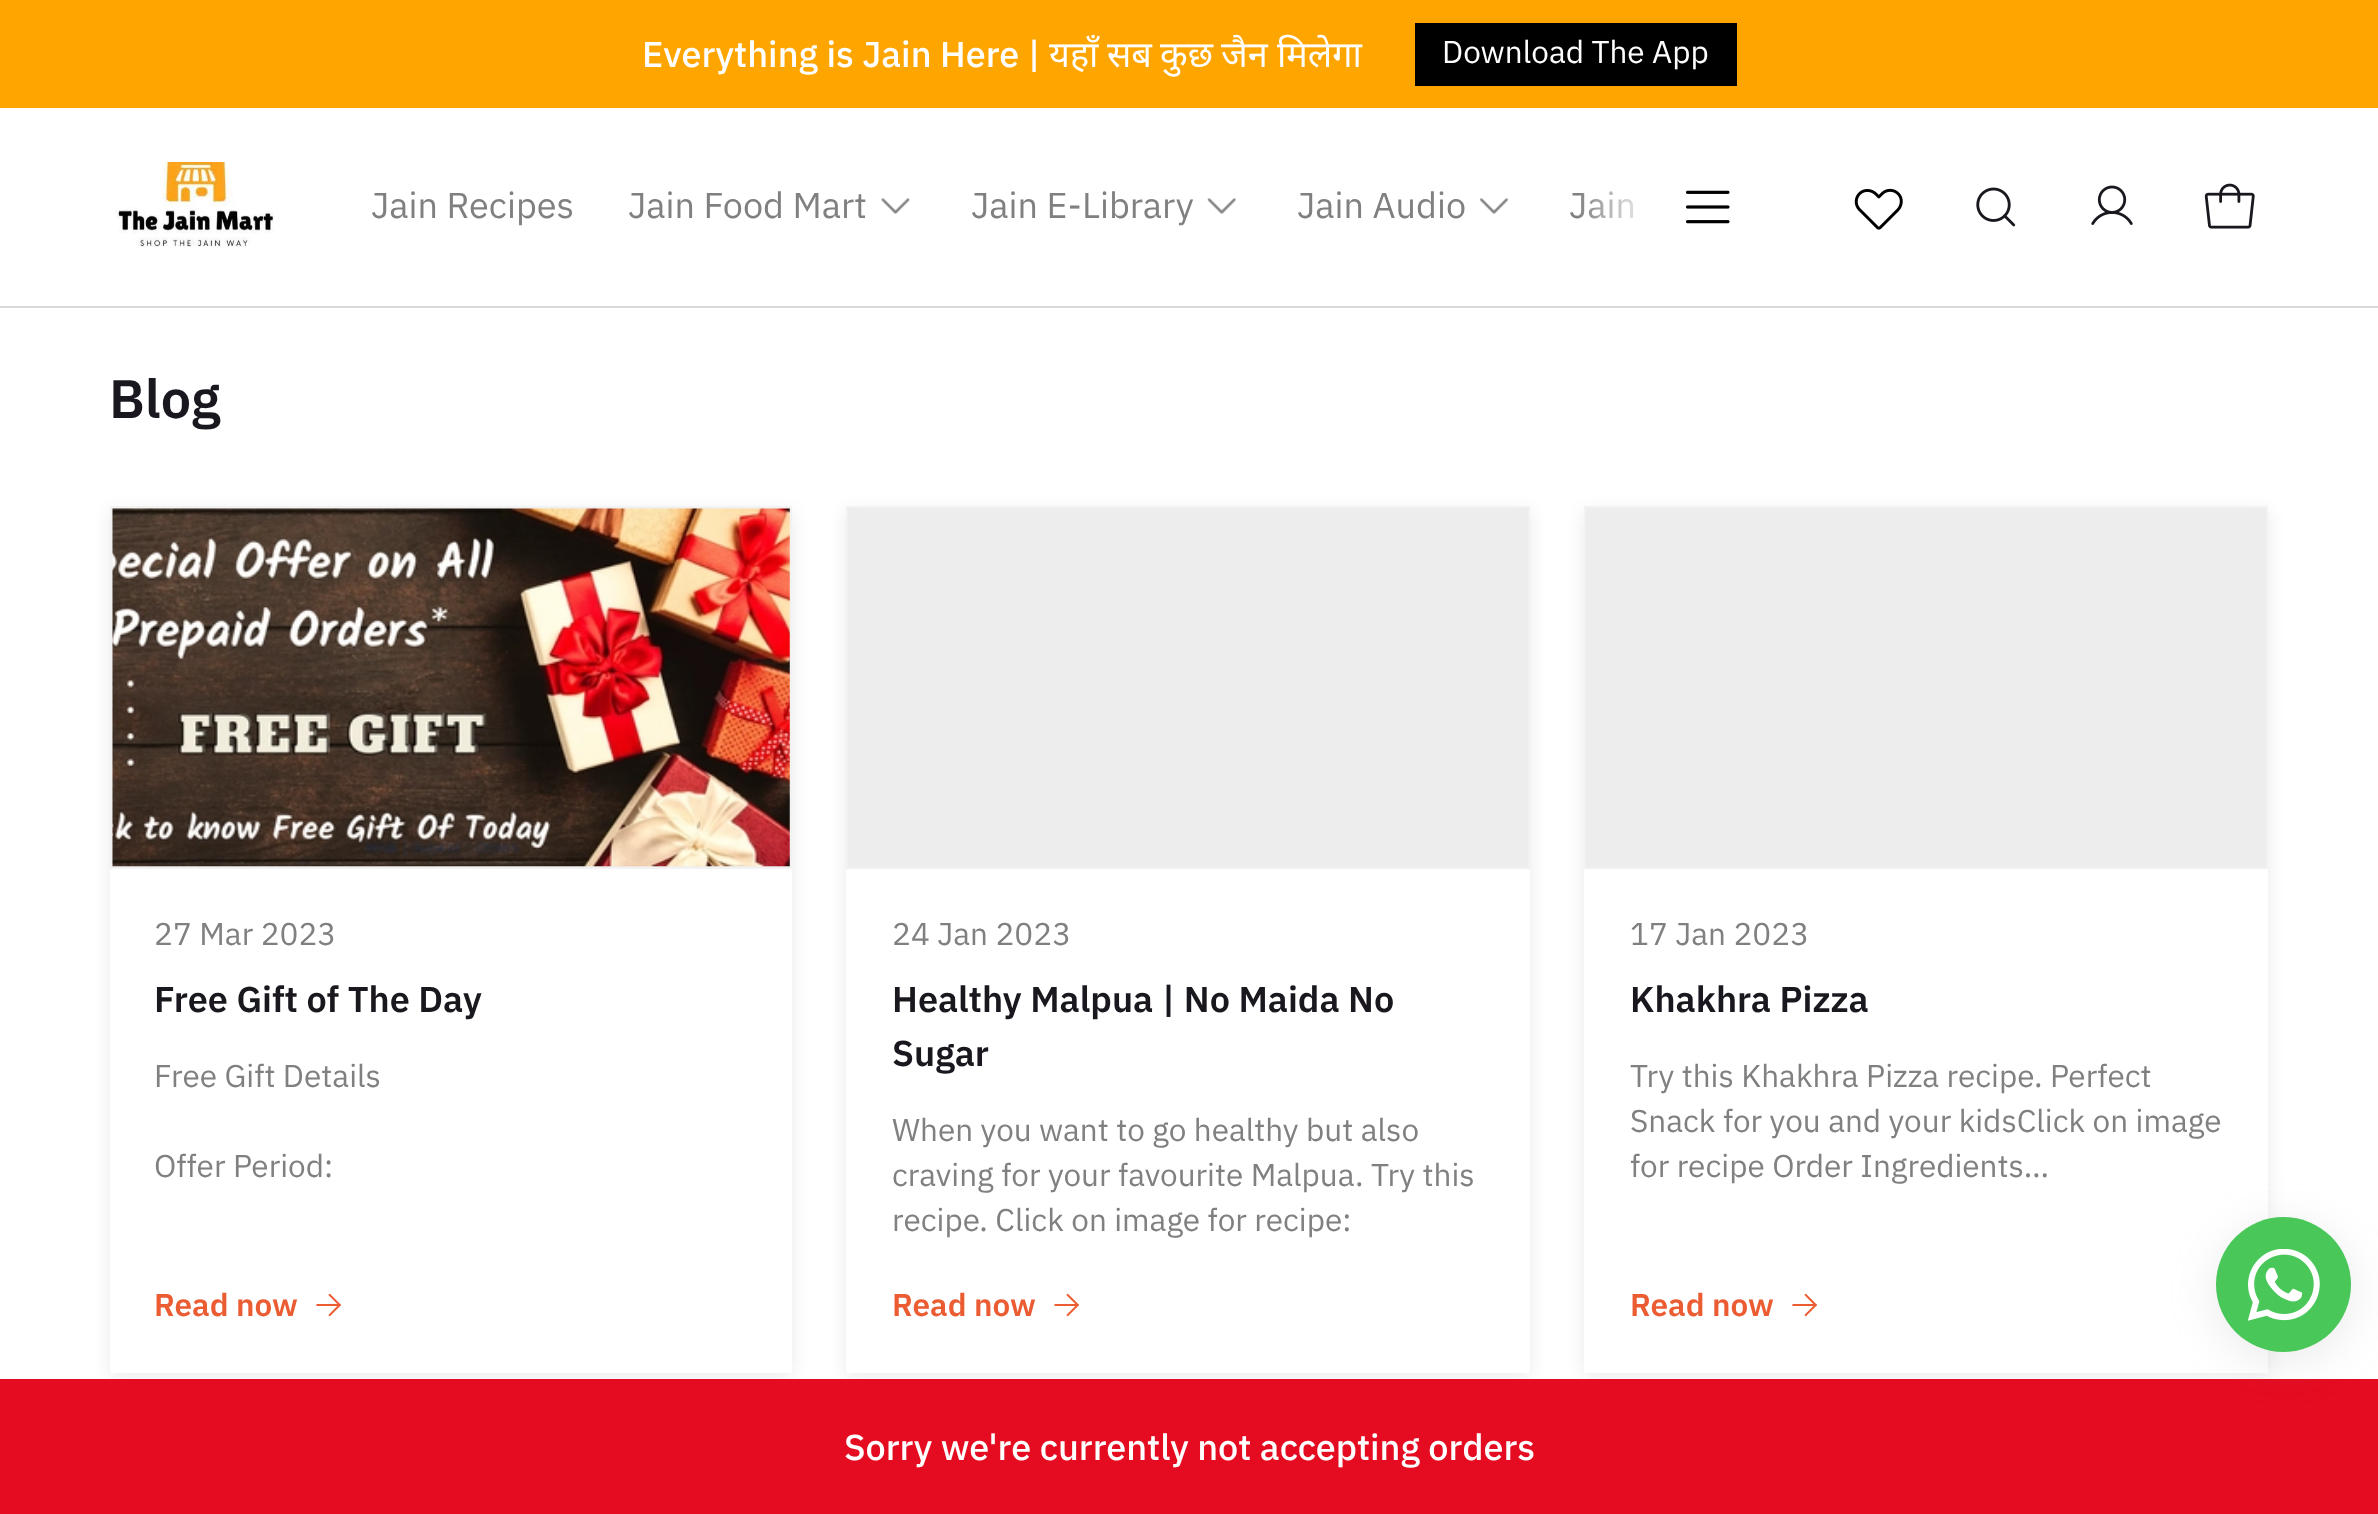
<svg xmlns="http://www.w3.org/2000/svg" width="2378" height="1514" viewBox="0 0 2378 1514">
  <style>
    .t1 { font: 500 36px IBM Plex Sans; fill: #fff; }
    .t2 { font: 36px Noto Sans; fill: #fff; }
    .t3 { font: 31.5px IBM Plex Sans; fill: #fff; }
    .t4 { font: 36px IBM Plex Sans; fill: #808080; }
    .t5 { font: 600 54px IBM Plex Sans; fill: #1a181e; }
    .t6 { font: 31.5px IBM Plex Sans; fill: #808080; }
    .t7 { font: 600 36px IBM Plex Sans; fill: #1a181e; }
    .t8 { font: 600 31.5px IBM Plex Sans; fill: #eb5c33; }
  </style>
  <defs>
    <linearGradient id="g1" gradientUnits="userSpaceOnUse" x1="1577" y1="195" x2="1667" y2="195"><stop offset="0" stop-color="#fff" stop-opacity="0"/><stop offset="0.86" stop-color="#fff"/></linearGradient>
    <clipPath id="clip1"><path d="M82 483H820V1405H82ZM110 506H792V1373H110Z" clip-rule="evenodd"/></clipPath>
    <clipPath id="clip2"><path d="M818 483H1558V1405H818ZM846 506H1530V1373H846Z" clip-rule="evenodd"/></clipPath>
    <clipPath id="clip3"><path d="M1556 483H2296V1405H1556ZM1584 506H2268V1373H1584Z" clip-rule="evenodd"/></clipPath>
  </defs>
  <rect width="100%" height="100%" fill="#fff"/>
  <rect x="0" y="0" width="2378" height="108" fill="#ffa500"/>
  <text x="642" y="67" class="t1">Everything is Jain Here |</text>
  <text x="1049" y="67" class="t2">यहाँ</text>
  <text x="1107" y="67" class="t2">सब</text>
  <text x="1160" y="67" class="t2">कुछ</text>
  <text x="1221" y="67" class="t2">जैन</text>
  <text x="1277" y="67" class="t2">मिलेगा</text>
  <rect x="1415" y="23" width="322" height="63" fill="#000"/>
  <text x="1442" y="63" class="t3">Download The App</text>
  <rect x="0" y="306" width="2378" height="2" fill="#d9d9d9"/>
  <image x="115" y="161" width="159" height="86" href="images/1.png"/>
  <text x="371" y="218" class="t4">Jain Recipes</text>
  <text x="628" y="218" class="t4">Jain Food Mart</text>
  <image x="881" y="198" width="29" height="16" href="images/2.png"/>
  <text x="971" y="218" class="t4">Jain E-Library</text>
  <image x="1207" y="198" width="30" height="16" href="images/3.png"/>
  <text x="1297" y="218" class="t4">Jain Audio</text>
  <image x="1479" y="198" width="30" height="16" href="images/4.png"/>
  <text x="1569" y="218" class="t4">Jain</text>
  <rect x="1579" y="191" width="55" height="28" fill="url(#g1)"/>
  <image x="1686" y="190" width="44" height="34" href="images/5.png"/>
  <image x="1854" y="188" width="49" height="42" href="images/6.png"/>
  <image x="1976" y="187" width="40" height="40" href="images/7.png"/>
  <image x="2091" y="185" width="42" height="40" href="images/8.png"/>
  <image x="2204" y="183" width="51" height="46" href="images/9.png"/>
  <text x="109" y="418" class="t5">Blog</text>
  <g clip-path="url(#clip1)">
    <rect x="110" y="511" width="682" height="866" fill="#00000014" filter="blur(9px)"/>
  </g>
  <rect x="111" y="507" width="680" height="361" fill="#ededed" stroke="#f2f2f2" stroke-width="2"/>
  <image x="112" y="508" width="678" height="359" href="images/10.png"/>
  <text x="154" y="945" class="t6">27 Mar 2023</text>
  <text x="154" y="1012" class="t7">Free Gift of The Day</text>
  <text x="154" y="1087" class="t6">Free Gift Details</text>
  <text x="154" y="1177" class="t6">Offer Period:</text>
  <text x="154" y="1316" class="t8">Read now</text>
  <image x="316" y="1293" width="25" height="24" href="images/11.png"/>
  <g clip-path="url(#clip2)">
    <rect x="846" y="511" width="684" height="866" fill="#00000014" filter="blur(9px)"/>
  </g>
  <rect x="847" y="507" width="682" height="361" fill="#ededed" stroke="#f2f2f2" stroke-width="2"/>
  <text x="892" y="945" class="t6">24 Jan 2023</text>
  <text x="892" y="1012" class="t7">Healthy Malpua | No Maida No</text>
  <text x="892" y="1066" class="t7">Sugar</text>
  <text x="892" y="1141" class="t6">When you want to go healthy but also</text>
  <text x="892" y="1186" class="t6">craving for your favourite Malpua. Try this</text>
  <text x="892" y="1231" class="t6">recipe. Click on image for recipe:</text>
  <text x="892" y="1316" class="t8">Read now</text>
  <image x="1054" y="1293" width="25" height="24" href="images/11.png"/>
  <g clip-path="url(#clip3)">
    <rect x="1584" y="511" width="684" height="866" fill="#00000014" filter="blur(9px)"/>
  </g>
  <rect x="1585" y="507" width="682" height="361" fill="#ededed" stroke="#f2f2f2" stroke-width="2"/>
  <text x="1630" y="945" class="t6">17 Jan 2023</text>
  <text x="1630" y="1012" class="t7">Khakhra Pizza</text>
  <text x="1630" y="1087" class="t6">Try this Khakhra Pizza recipe. Perfect</text>
  <text x="1630" y="1132" class="t6">Snack for you and your kidsClick on image</text>
  <text x="1630" y="1177" class="t6">for recipe Order Ingredients…</text>
  <text x="1630" y="1316" class="t8">Read now</text>
  <image x="1792" y="1293" width="25" height="24" href="images/11.png"/>
  <rect x="0" y="1379" width="2378" height="135" fill="#e50b20"/>
  <rect x="2216" y="1226" width="135" height="135" rx="67.5" fill="#98989833" filter="blur(22.5px)"/>
  <circle cx="2283.5" cy="1284.5" r="67.5" fill="#49c759"/>
  <image x="2248" y="1249" width="72" height="72" href="images/12.png"/>
  <text x="844" y="1460" class="t1">Sorry we're currently not accepting orders</text>
</svg>
